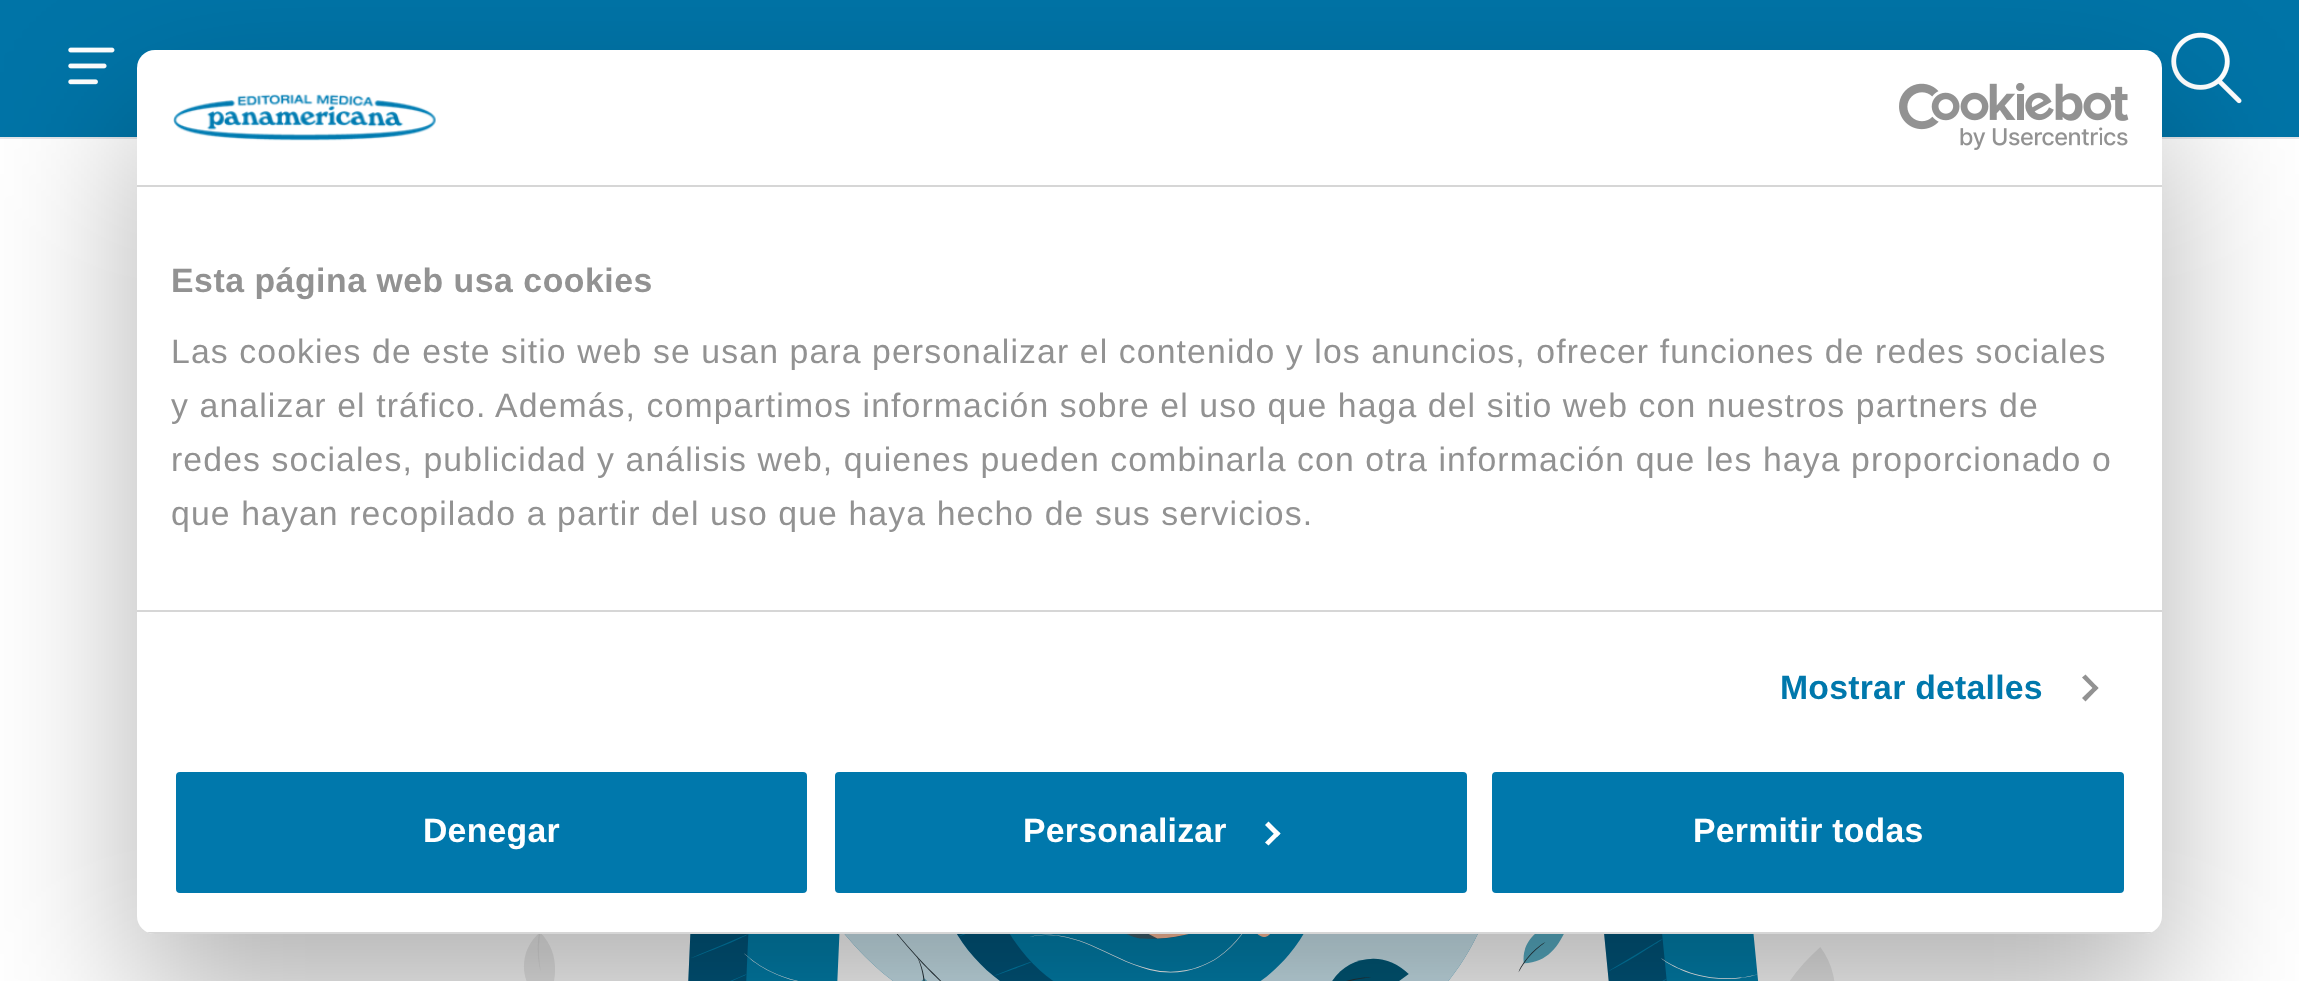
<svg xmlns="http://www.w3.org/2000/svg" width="2299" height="981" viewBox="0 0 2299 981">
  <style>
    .t1 { font: bold 33.75px Liberation Sans; letter-spacing: 0.55px; fill: #929292; }
    .t2 { font: 33.75px Liberation Sans; letter-spacing: 1.12px; fill: #929292; }
    .t3 { font: bold 33.75px Liberation Sans; letter-spacing: 0.25px; fill: #0078ac; }
    .t4 { font: bold 33.75px Liberation Sans; letter-spacing: 0.25px; fill: #fff; }
  </style>
  <defs>
    <clipPath id="clip1"><rect x="137" y="50" width="2025" height="884" rx="18"/></clipPath>
  </defs>
  <rect width="100%" height="100%" fill="#fff"/>
  <rect x="0" y="137" width="2299" height="2" fill="#e5e7eb"/>
  <rect x="0" y="0" width="2299" height="137" fill="#0074a7"/>
  <image x="68" y="47" width="47" height="38" href="images/1.png"/>
  <image x="2171" y="32" width="71" height="72" href="images/2.png"/>
  <image x="523" y="934" width="1312" height="47" href="images/3.png"/>
  <rect x="137" y="122" width="2025" height="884" rx="18" fill="#0000004d" filter="blur(76.5px)"/>
  <rect x="137" y="50" width="2025" height="884" rx="18" fill="#fff"/>
  <rect x="137" y="185" width="2025" height="2" fill="#d6d6d6"/>
  <image x="173" y="94" width="263" height="47" href="images/4.png"/>
  <image x="1899" y="83" width="230" height="67" href="images/5.png"/>
  <rect x="137" y="610" width="2025" height="2" fill="#d6d6d6"/>
  <text x="171" y="292" class="t1">Esta página web usa cookies</text>
  <text x="171" y="363" class="t2">Las cookies de este sitio web se usan para personalizar el contenido y los anuncios, ofrecer funciones de redes sociales</text>
  <text x="171" y="417" class="t2">y analizar el tráfico. Además, compartimos información sobre el uso que haga del sitio web con nuestros partners de</text>
  <text x="171" y="471" class="t2">redes sociales, publicidad y análisis web, quienes pueden combinarla con otra información que les haya proporcionado o</text>
  <text x="171" y="525" class="t2">que hayan recopilado a partir del uso que haya hecho de sus servicios.</text>
  <text x="1780" y="699" class="t3">Mostrar detalles</text>
  <path d="M2085.5 674.5L2098.5 688L2095.5 691L2082 677.5Z" fill="#929292"/>
  <path d="M2095.5 685L2098.5 688L2085.5 701.5L2082 698Z" fill="#929292"/>
  <g clip-path="url(#clip1)">
    <rect x="147" y="932" width="2005" height="2" fill="#d6d6d6"/>
  </g>
  <rect x="173.5" y="769.5" width="636" height="126" rx="6.5" fill="#0078ac" stroke="#fff" stroke-width="5"/>
  <text x="423" y="842" class="t4">Denegar</text>
  <rect x="832.5" y="769.5" width="637" height="126" rx="6.5" fill="#0078ac" stroke="#fff" stroke-width="5"/>
  <text x="1023" y="842" class="t4">Personalizar</text>
  <path d="M1268.5 821.5L1280.5 833.5L1277 837L1265 825Z" fill="#fff"/>
  <path d="M1277 830.5L1280.5 833.5L1268.5 845.5L1265 842.5Z" fill="#fff"/>
  <rect x="1489.5" y="769.5" width="637" height="126" rx="6.5" fill="#0078ac" stroke="#fff" stroke-width="5"/>
  <text x="1693" y="842" class="t4">Permitir todas</text>
</svg>
